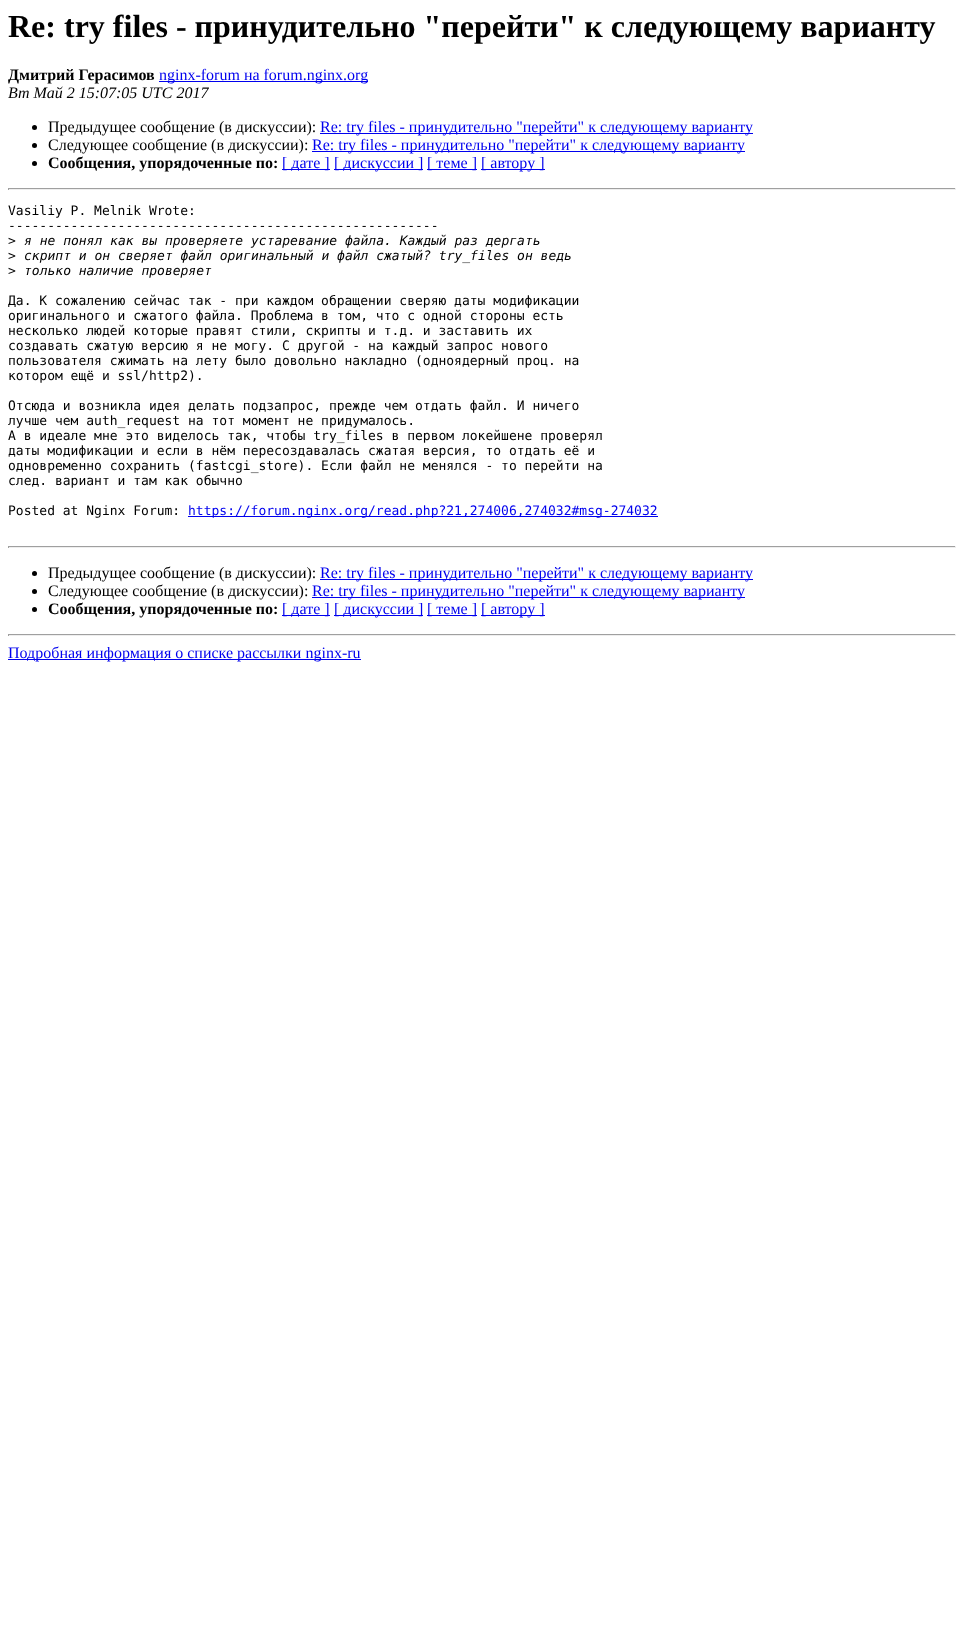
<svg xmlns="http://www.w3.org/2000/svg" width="964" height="1649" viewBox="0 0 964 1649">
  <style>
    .t1 { font: bold 32px Liberation Serif; fill: #000; }
    .t2 { font: bold 16px Liberation Serif; fill: #000; }
    .t3 { font: 16px Liberation Serif; fill: #00e; }
    .t4 { font: italic 16px Liberation Serif; fill: #000; }
    .t5 { font: 16px Liberation Serif; fill: #000; }
    .t6 { font: 13px DejaVu Sans Mono; fill: #000; }
    .t7 { font: italic 13px DejaVu Sans Mono; fill: #000; }
    .t8 { font: 13px DejaVu Sans Mono; fill: #00e; }
  </style>
  <rect width="100%" height="100%" fill="#fff"/>
  <text x="8" y="37" class="t1">Re: try files - принудительно "перейти" к следующему варианту</text>
  <text x="8" y="80" class="t2">Дмитрий Герасимов</text>
  <rect x="159" y="81" width="209" height="1" fill="#00e"/>
  <text x="159" y="80" class="t3">nginx-forum на forum.nginx.org</text>
  <text x="8" y="98" class="t4">Вт Май 2 15:07:05 UTC 2017</text>
  <circle cx="34.5" cy="127.5" r="2.5" fill="#000"/>
  <text x="48" y="132" class="t5">Предыдущее сообщение (в дискуссии):</text>
  <rect x="320" y="133" width="433" height="1" fill="#00e"/>
  <text x="320" y="132" class="t3">Re: try files - принудительно "перейти" к следующему варианту</text>
  <circle cx="34.5" cy="145.5" r="2.5" fill="#000"/>
  <text x="48" y="150" class="t5">Следующее сообщение (в дискуссии):</text>
  <rect x="312" y="151" width="433" height="1" fill="#00e"/>
  <text x="312" y="150" class="t3">Re: try files - принудительно "перейти" к следующему варианту</text>
  <circle cx="34.5" cy="163.5" r="2.5" fill="#000"/>
  <text x="48" y="168" class="t2">Сообщения, упорядоченные по:</text>
  <rect x="282" y="169" width="48" height="1" fill="#00e"/>
  <text x="282" y="168" class="t3">[ дате ]</text>
  <rect x="334" y="169" width="89" height="1" fill="#00e"/>
  <text x="334" y="168" class="t3">[ дискуссии ]</text>
  <rect x="427" y="169" width="50" height="1" fill="#00e"/>
  <text x="427" y="168" class="t3">[ теме ]</text>
  <rect x="481" y="169" width="64" height="1" fill="#00e"/>
  <text x="481" y="168" class="t3">[ автору ]</text>
  <rect x="8" y="188" width="948" height="1" fill="#9f9f9f"/>
  <rect x="955" y="188" width="1" height="2" fill="#eee"/>
  <rect x="8" y="189" width="948" height="1" fill="#eee"/>
  <rect x="8" y="188" width="1" height="2" fill="#9f9f9f"/>
  <text x="8" y="215" class="t6">Vasiliy P. Melnik Wrote:</text>
  <text x="8" y="230" class="t6">-------------------------------------------------------</text>
  <text x="8" y="245" class="t6">&gt;</text>
  <text x="24" y="245" class="t7">я не понял как вы проверяете устаревание файла. Каждый раз дергать</text>
  <text x="8" y="260" class="t6">&gt;</text>
  <text x="24" y="260" class="t7">скрипт и он сверяет файл оригинальный и файл сжатый? try_files он ведь</text>
  <text x="8" y="275" class="t6">&gt;</text>
  <text x="24" y="275" class="t7">только наличие проверяет</text>
  <text x="8" y="305" class="t6">Да. К сожалению сейчас так - при каждом обращении сверяю даты модификации</text>
  <text x="8" y="320" class="t6">оригинального и сжатого файла. Проблема в том, что с одной стороны есть</text>
  <text x="8" y="335" class="t6">несколько людей которые правят стили, скрипты и т.д. и заставить их</text>
  <text x="8" y="350" class="t6">создавать сжатую версию я не могу. С другой - на каждый запрос нового</text>
  <text x="8" y="365" class="t6">пользователя сжимать на лету было довольно накладно (одноядерный проц. на</text>
  <text x="8" y="380" class="t6">котором ещё и ssl/http2).</text>
  <text x="8" y="410" class="t6">Отсюда и возникла идея делать подзапрос, прежде чем отдать файл. И ничего</text>
  <text x="8" y="425" class="t6">лучше чем auth_request на тот момент не придумалось.</text>
  <text x="8" y="440" class="t6">А в идеале мне это виделось так, чтобы try_files в первом локейшене проверял</text>
  <text x="8" y="455" class="t6">даты модификации и если в нём пересоздавалась сжатая версия, то отдать её и</text>
  <text x="8" y="470" class="t6">одновременно сохранить (fastcgi_store). Если файл не менялся - то перейти на</text>
  <text x="8" y="485" class="t6">след. вариант и там как обычно</text>
  <text x="8" y="515" class="t6">Posted at Nginx Forum:</text>
  <rect x="188" y="516" width="470" height="1" fill="#00e"/>
  <text x="188" y="515" class="t8">https://forum.nginx.org/read.php?21,274006,274032#msg-274032</text>
  <rect x="8" y="546" width="948" height="1" fill="#9f9f9f"/>
  <rect x="955" y="546" width="1" height="2" fill="#eee"/>
  <rect x="8" y="547" width="948" height="1" fill="#eee"/>
  <rect x="8" y="546" width="1" height="2" fill="#9f9f9f"/>
  <circle cx="34.5" cy="573.5" r="2.5" fill="#000"/>
  <text x="48" y="578" class="t5">Предыдущее сообщение (в дискуссии):</text>
  <rect x="320" y="579" width="433" height="1" fill="#00e"/>
  <text x="320" y="578" class="t3">Re: try files - принудительно "перейти" к следующему варианту</text>
  <circle cx="34.5" cy="591.5" r="2.5" fill="#000"/>
  <text x="48" y="596" class="t5">Следующее сообщение (в дискуссии):</text>
  <rect x="312" y="597" width="433" height="1" fill="#00e"/>
  <text x="312" y="596" class="t3">Re: try files - принудительно "перейти" к следующему варианту</text>
  <circle cx="34.5" cy="609.5" r="2.5" fill="#000"/>
  <text x="48" y="614" class="t2">Сообщения, упорядоченные по:</text>
  <rect x="282" y="615" width="48" height="1" fill="#00e"/>
  <text x="282" y="614" class="t3">[ дате ]</text>
  <rect x="334" y="615" width="89" height="1" fill="#00e"/>
  <text x="334" y="614" class="t3">[ дискуссии ]</text>
  <rect x="427" y="615" width="50" height="1" fill="#00e"/>
  <text x="427" y="614" class="t3">[ теме ]</text>
  <rect x="481" y="615" width="64" height="1" fill="#00e"/>
  <text x="481" y="614" class="t3">[ автору ]</text>
  <rect x="8" y="634" width="948" height="1" fill="#9f9f9f"/>
  <rect x="955" y="634" width="1" height="2" fill="#eee"/>
  <rect x="8" y="635" width="948" height="1" fill="#eee"/>
  <rect x="8" y="634" width="1" height="2" fill="#9f9f9f"/>
  <rect x="8" y="659" width="353" height="1" fill="#00e"/>
  <text x="8" y="658" class="t3">Подробная информация о списке рассылки nginx-ru</text>
</svg>
